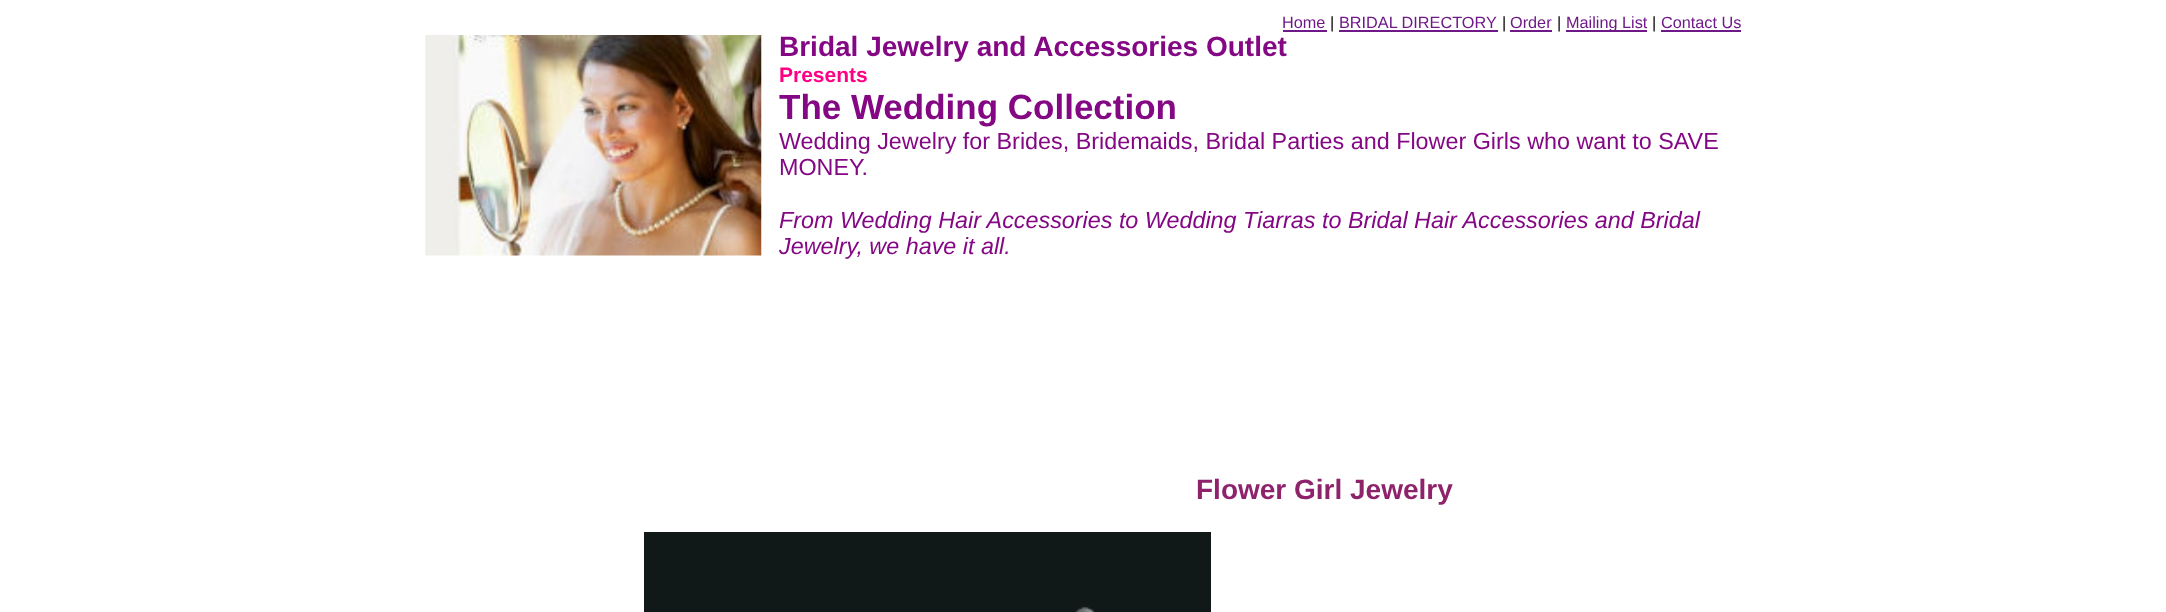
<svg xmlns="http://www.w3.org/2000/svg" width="2166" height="612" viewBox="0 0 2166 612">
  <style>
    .t1 { font: 16.25px Liberation Sans; fill: #6f1988; }
    .t2 { font: 16.25px Liberation Sans; fill: #000; }
    .t3 { font: bold 28px Liberation Sans; fill: #840884; }
    .t4 { font: bold 21px Liberation Sans; fill: #ff0084; }
    .t5 { font: bold 35px Liberation Sans; fill: #840884; }
    .t6 { font: 23.35px Liberation Sans; fill: #840884; }
    .t7 { font: italic 23.35px Liberation Sans; fill: #840884; }
    .t8 { font: bold 28px Liberation Sans; fill: #8e236b; }
  </style>
  <rect width="100%" height="100%" fill="#fff"/>
  <text x="1282" y="28" class="t1">Home</text>
  <rect x="1283" y="30" width="44" height="2" fill="#6f1988"/>
  <text x="1330" y="28" class="t2">|</text>
  <text x="1339" y="28" class="t1">BRIDAL DIRECTORY</text>
  <rect x="1339" y="30" width="159" height="2" fill="#6f1988"/>
  <text x="1502" y="28" class="t2">|</text>
  <text x="1510" y="28" class="t1">Order</text>
  <rect x="1510" y="30" width="42" height="2" fill="#6f1988"/>
  <text x="1557" y="28" class="t2">|</text>
  <rect x="1566" y="30" width="81" height="2" fill="#6f1988"/>
  <text x="1566" y="28" class="t1">Mailing List</text>
  <text x="1652" y="28" class="t2">|</text>
  <text x="1661" y="28" class="t1">Contact Us</text>
  <rect x="1661" y="30" width="80" height="2" fill="#6f1988"/>
  <image x="425" y="35" width="337" height="221" href="images/1.png"/>
  <text x="779" y="56" class="t3">Bridal Jewelry and Accessories Outlet</text>
  <text x="779" y="82" class="t4">Presents</text>
  <text x="779" y="119" class="t5">The Wedding Collection</text>
  <text x="779" y="149" class="t6">Wedding Jewelry for Brides, Bridemaids, Bridal Parties and Flower Girls who want to SAVE</text>
  <text x="779" y="175" class="t6">MONEY.</text>
  <text x="779" y="228" class="t7">From Wedding Hair Accessories to Wedding Tiarras to Bridal Hair Accessories and Bridal</text>
  <text x="779" y="254" class="t7">Jewelry, we have it all.</text>
  <text x="1196" y="499" class="t8">Flower Girl Jewelry</text>
  <image x="644" y="532" width="567" height="80" href="images/2.png"/>
</svg>
